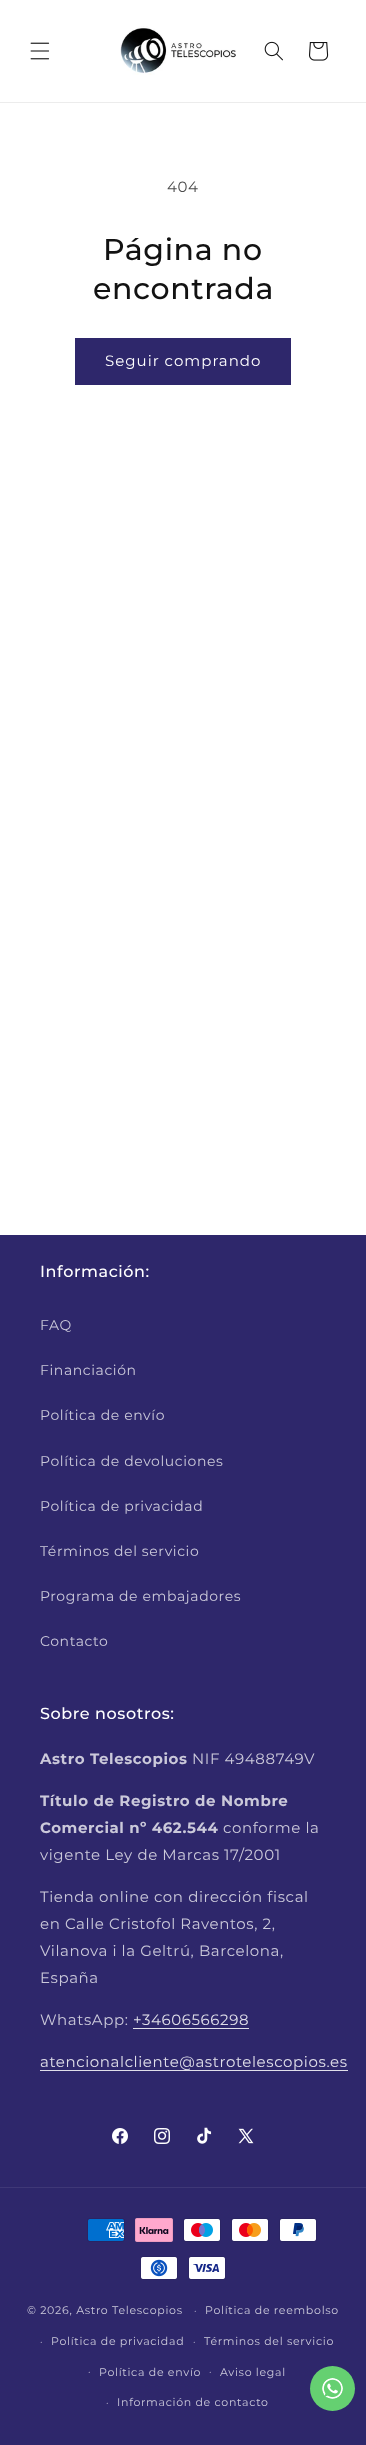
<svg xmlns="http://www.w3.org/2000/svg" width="366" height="2445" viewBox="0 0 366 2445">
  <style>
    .t1 { font: 15px Montserrat; letter-spacing: 0.6px; fill: #4d4d4d; }
    .t2 { font: 500 30px Montserrat; letter-spacing: 0.6px; fill: #121212; }
    .t3 { font: 15px Montserrat; letter-spacing: 1px; fill: #fff; }
    .t4 { font: 500 16px Montserrat; letter-spacing: 0.6px; fill: #fff; }
    .t5 { font: 14px Montserrat; letter-spacing: 0.6px; fill: #cbc9da; }
    .t6 { font: bold 15px Montserrat; letter-spacing: 0.6px; fill: #cbc9da; }
    .t7 { font: 15px Montserrat; letter-spacing: 0.6px; fill: #cbc9da; }
    .t8 { font: 15px Montserrat; letter-spacing: 0.6px; fill: #e0dfe9; }
    .t9 { font: 11px Montserrat; letter-spacing: 0.7px; fill: #cbc9da; }
    .t10 { font: 10px Montserrat; letter-spacing: 0.7px; fill: #cbc9da; }
  </style>
  <rect width="100%" height="100%" fill="#fff"/>
  <rect x="0" y="102" width="366" height="1" fill="#ececec"/>
  <image x="30" y="42" width="20" height="18" href="images/1.png"/>
  <image x="120" y="26" width="116" height="49" href="images/2.png"/>
  <image x="264" y="41" width="19" height="20" href="images/3.png"/>
  <image x="309" y="42" width="20" height="19" href="images/4.png"/>
  <text x="167" y="192" class="t1">404</text>
  <text x="103" y="260" class="t2">Página no</text>
  <text x="93" y="299" class="t2">encontrada</text>
  <rect x="75" y="338" width="216" height="47" fill="#2e276b"/>
  <text x="105" y="366" class="t3">Seguir comprando</text>
  <rect x="0" y="1235" width="366" height="1210" fill="#2e276b"/>
  <text x="40" y="1277" class="t4">Información:</text>
  <text x="40" y="1330" class="t5">FAQ</text>
  <text x="40" y="1375" class="t5">Financiación</text>
  <text x="40" y="1420" class="t5">Política de envío</text>
  <text x="40" y="1466" class="t5">Política de devoluciones</text>
  <text x="40" y="1511" class="t5">Política de privacidad</text>
  <text x="40" y="1556" class="t5">Términos del servicio</text>
  <text x="40" y="1601" class="t5">Programa de embajadores</text>
  <text x="40" y="1646" class="t5">Contacto</text>
  <text x="40" y="1719" class="t4">Sobre nosotros:</text>
  <text x="40" y="1764" class="t6">Astro Telescopios</text>
  <text x="192" y="1764" class="t7">NIF 49488749V</text>
  <text x="40" y="1806" class="t6">Título de Registro de Nombre</text>
  <text x="40" y="1833" class="t6">Comercial nº 462.544</text>
  <text x="223" y="1833" class="t7">conforme la</text>
  <text x="40" y="1860" class="t7">vigente Ley de Marcas 17/2001</text>
  <text x="40" y="1902" class="t7">Tienda online con dirección fiscal</text>
  <text x="40" y="1929" class="t7">en Calle Cristofol Raventos, 2,</text>
  <text x="40" y="1956" class="t7">Vilanova i la Geltrú, Barcelona,</text>
  <text x="40" y="1983" class="t7">España</text>
  <text x="40" y="2025" class="t7">WhatsApp:</text>
  <text x="133" y="2025" class="t8">+34606566298</text>
  <rect x="133" y="2028" width="116" height="1" fill="#e0dfe9"/>
  <text x="40" y="2067" class="t8">atencionalcliente@astrotelescopios.es</text>
  <rect x="40" y="2070" width="308" height="1" fill="#e0dfe9"/>
  <image x="112" y="2128" width="16" height="16" href="images/5.png"/>
  <image x="154" y="2128" width="16" height="16" href="images/6.png"/>
  <image x="197" y="2127" width="15" height="17" href="images/7.png"/>
  <image x="238" y="2128" width="16" height="16" href="images/8.png"/>
  <rect x="0" y="2187" width="366" height="1" fill="#3f3877"/>
  <image x="87" y="2218" width="38" height="24" href="images/9.png"/>
  <image x="135" y="2218" width="38" height="24" href="images/10.png"/>
  <image x="183" y="2218" width="38" height="24" href="images/11.png"/>
  <image x="231" y="2218" width="38" height="24" href="images/12.png"/>
  <image x="279" y="2218" width="38" height="24" href="images/13.png"/>
  <image x="140" y="2256" width="38" height="24" href="images/14.png"/>
  <image x="188" y="2256" width="38" height="24" href="images/15.png"/>
  <text x="27" y="2314" class="t9">© 2026, Astro Telescopios</text>
  <text x="194" y="2314" class="t10">·</text>
  <text x="205" y="2314" class="t9">Política de reembolso</text>
  <text x="40" y="2345" class="t10">·</text>
  <text x="51" y="2345" class="t9">Política de privacidad</text>
  <text x="193" y="2345" class="t10">·</text>
  <text x="204" y="2345" class="t9">Términos del servicio</text>
  <text x="88" y="2375" class="t10">·</text>
  <text x="99" y="2376" class="t9">Política de envío</text>
  <text x="209" y="2375" class="t10">·</text>
  <text x="220" y="2376" class="t9">Aviso legal</text>
  <text x="106" y="2406" class="t10">·</text>
  <text x="117" y="2406" class="t9">Información de contacto</text>
  <circle cx="332.5" cy="2388.5" r="22.5" fill="#65d071"/>
  <image x="322" y="2378" width="21" height="21" href="images/16.png"/>
</svg>
